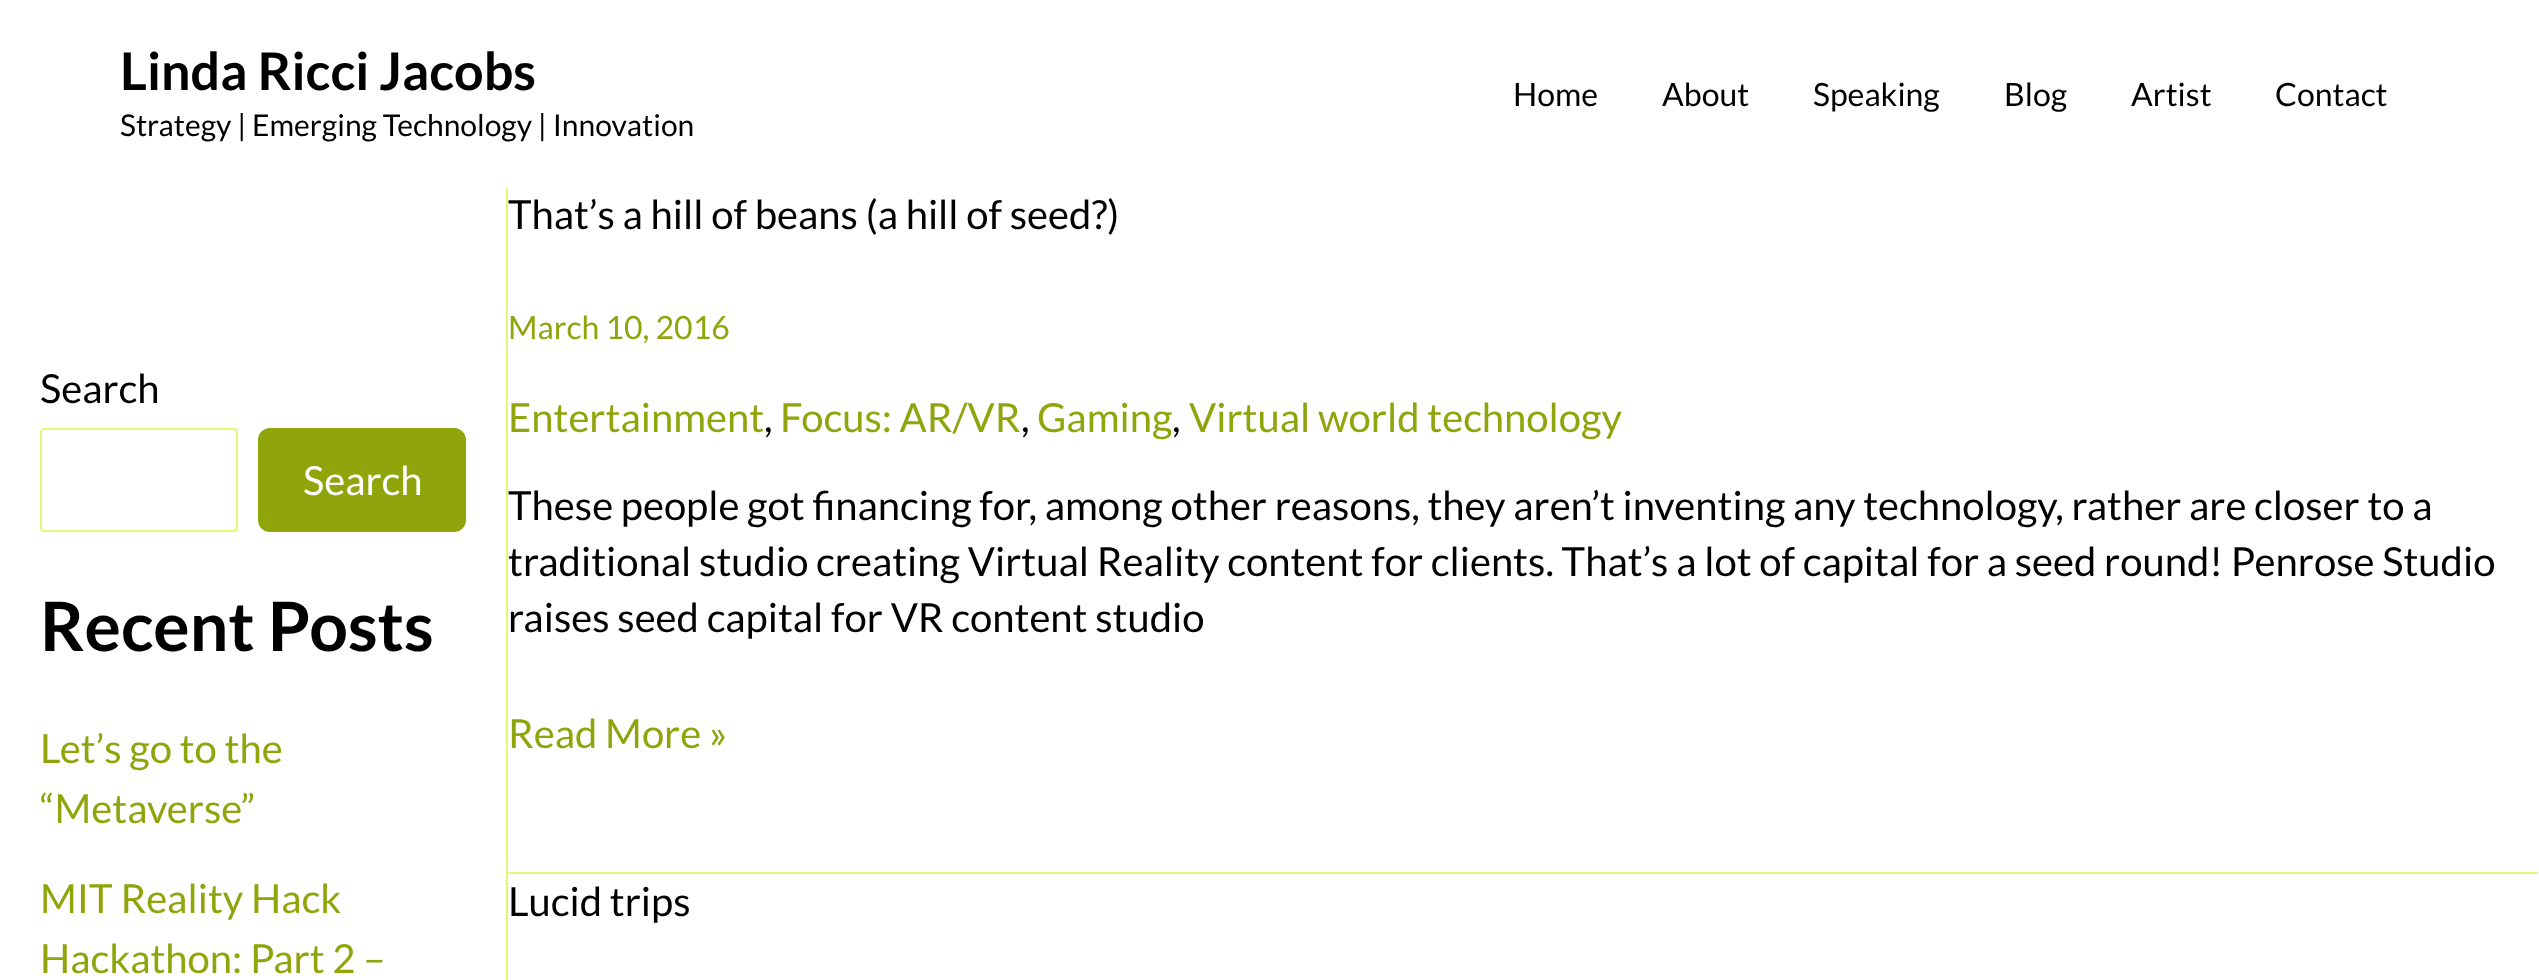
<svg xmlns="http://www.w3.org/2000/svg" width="2539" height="980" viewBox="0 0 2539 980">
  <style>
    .t1 { font: bold 52px Lato; fill: #000; }
    .t2 { font: 30px Lato; fill: #000; }
    .t3 { font: 32px Lato; fill: #000; }
    .t4 { font: 40px Lato; fill: #000; }
    .t5 { font: 40px Lato; fill: #fff; }
    .t6 { font: bold 68px Lato; fill: #000; }
    .t7 { font: 40px Lato; fill: #8fa50b; }
    .t8 { font: 32px Lato; fill: #8fa50b; }
  </style>
  <rect width="100%" height="100%" fill="#fff"/>
  <text x="120" y="90" class="t1">Linda Ricci Jacobs</text>
  <text x="120" y="136" class="t2">Strategy | Emerging Technology | Innovation</text>
  <text x="1513" y="106" class="t3">Home</text>
  <text x="1662" y="106" class="t3">About</text>
  <text x="1813" y="106" class="t3">Speaking</text>
  <text x="2004" y="106" class="t3">Blog</text>
  <text x="2131" y="106" class="t3">Artist</text>
  <text x="2275" y="106" class="t3">Contact</text>
  <text x="40" y="403" class="t4">Search</text>
  <rect x="41" y="429" width="196" height="102" rx="3" fill="none" stroke="#e5f67c" stroke-width="2"/>
  <rect x="260" y="430" width="204" height="100" rx="10" fill="#8fa50b" stroke="#8fa50b" stroke-width="4"/>
  <text x="303" y="495" class="t5">Search</text>
  <text x="40" y="651" class="t6">Recent Posts</text>
  <text x="40" y="763" class="t7">Let’s go to the</text>
  <text x="40" y="823" class="t7">“Metaverse”</text>
  <text x="40" y="913" class="t7">MIT Reality Hack</text>
  <text x="40" y="973" class="t7">Hackathon: Part 2 –</text>
  <rect x="506" y="188" width="2" height="792" fill="#e5f67c"/>
  <rect x="508" y="872" width="2030" height="2" fill="#e5f67c"/>
  <text x="508" y="229" class="t4">That’s a hill of beans (a hill of seed?)</text>
  <text x="508" y="339" class="t8">March 10, 2016</text>
  <text x="508" y="432" class="t7">Entertainment</text>
  <text x="764" y="432" class="t4">,</text>
  <text x="780" y="432" class="t7">Focus: AR/VR</text>
  <text x="1021" y="432" class="t4">,</text>
  <text x="1037" y="432" class="t7">Gaming</text>
  <text x="1172" y="432" class="t4">,</text>
  <text x="1189" y="432" class="t7">Virtual world technology</text>
  <text x="508" y="520" class="t4">These people got financing for, among other reasons, they aren’t inventing any technology, rather are closer to a</text>
  <text x="508" y="576" class="t4">traditional studio creating Virtual Reality content for clients. That’s a lot of capital for a seed round! Penrose Studio</text>
  <text x="508" y="632" class="t4">raises seed capital for VR content studio</text>
  <text x="508" y="748" class="t7">Read More »</text>
  <text x="508" y="916" class="t4">Lucid trips</text>
</svg>
